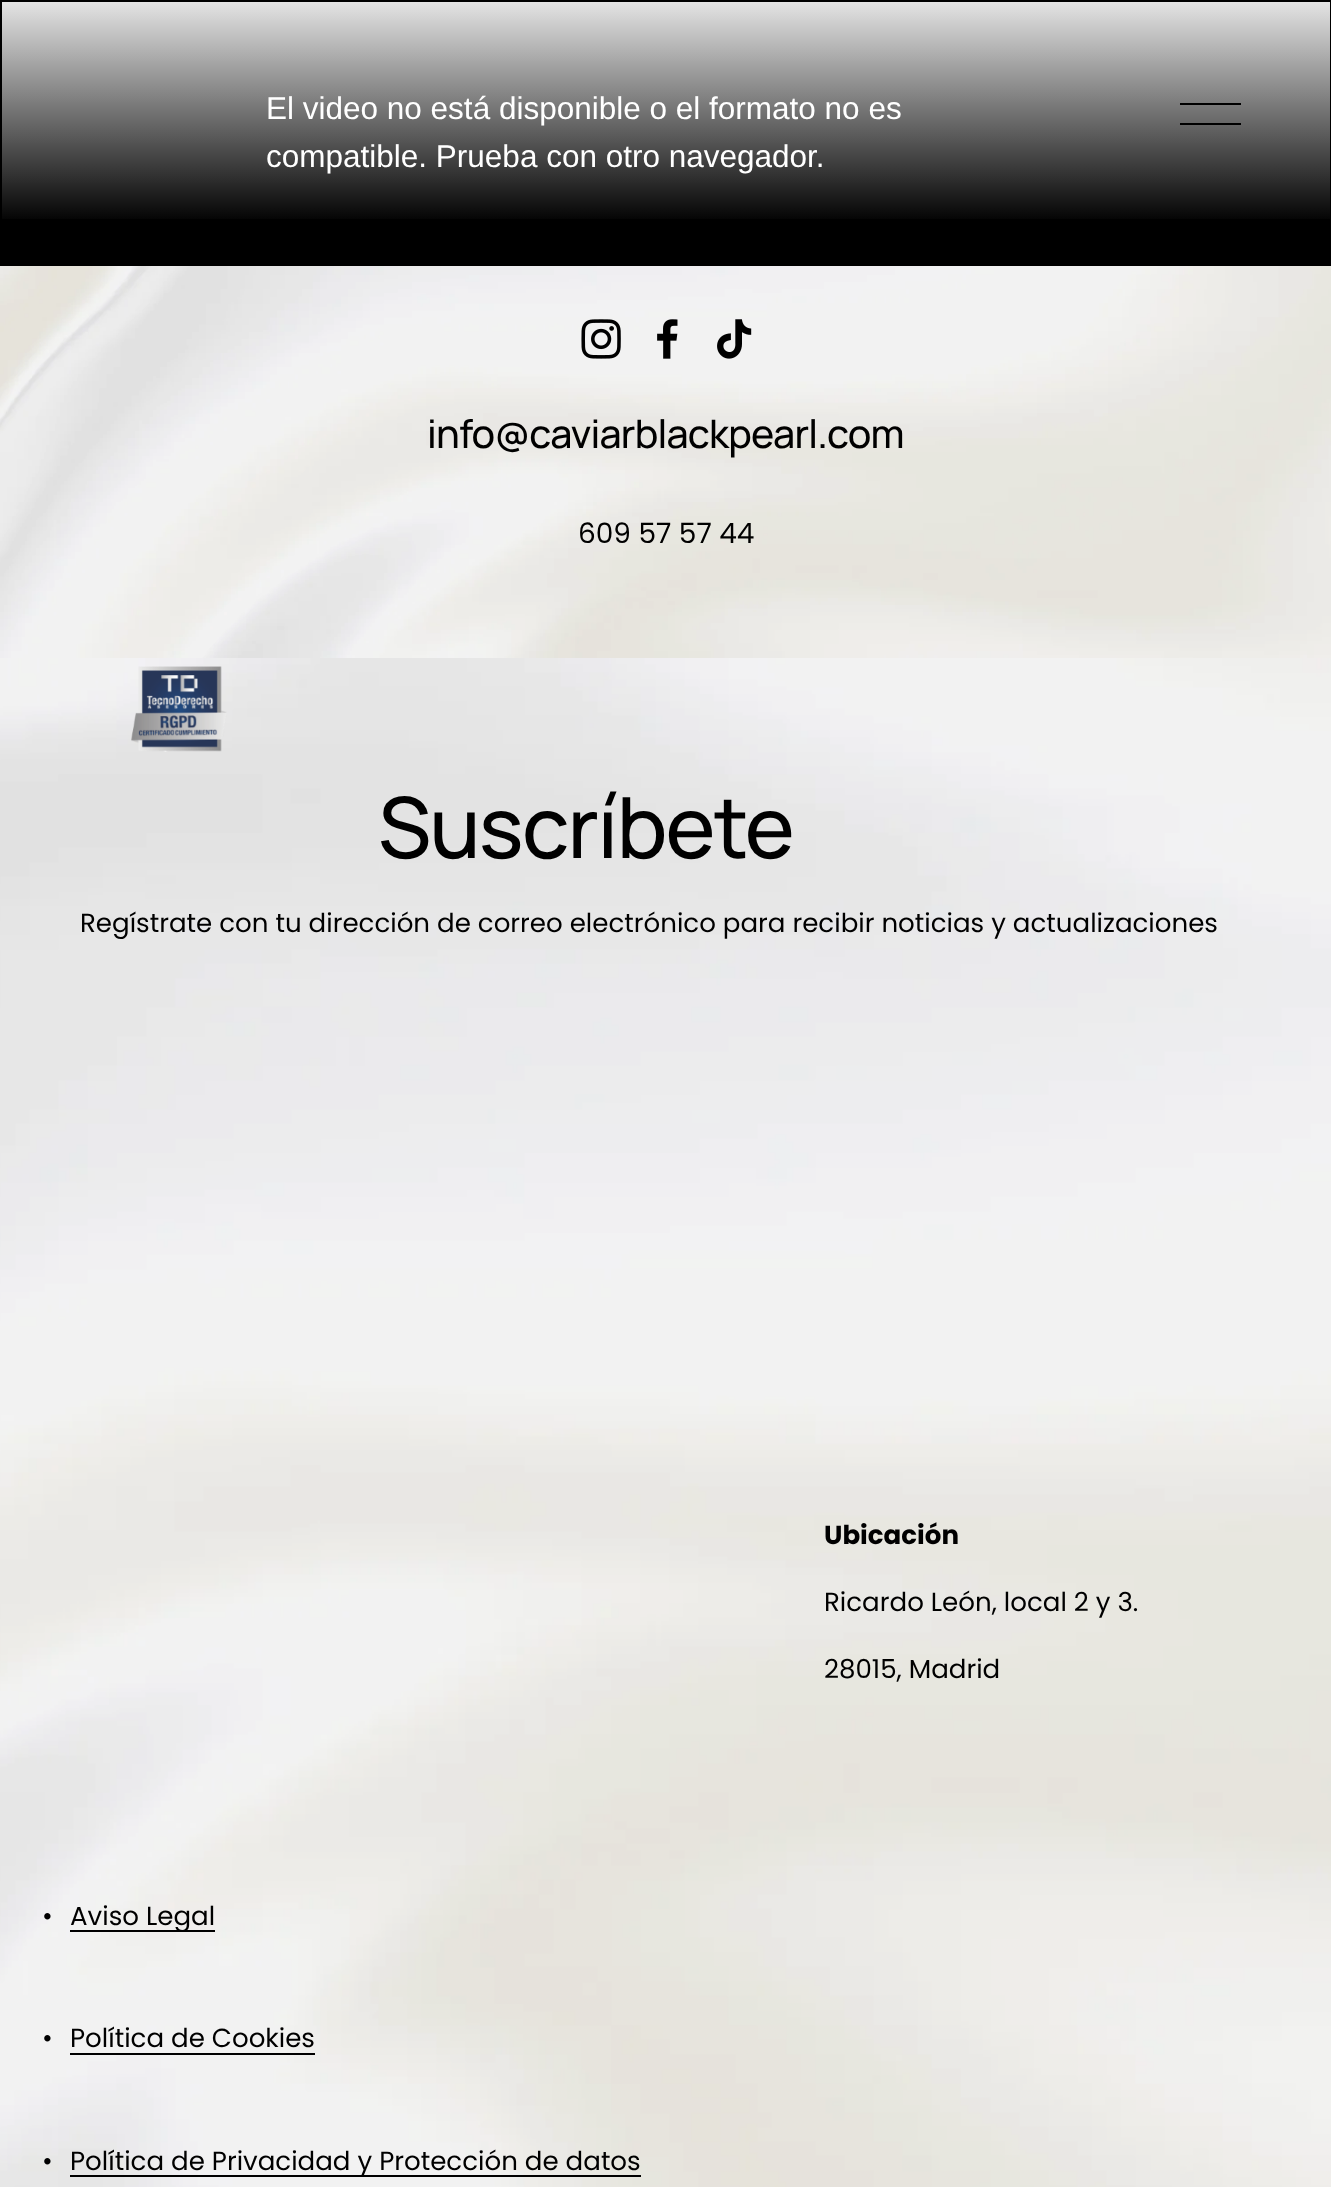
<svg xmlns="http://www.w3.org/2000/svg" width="1331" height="2187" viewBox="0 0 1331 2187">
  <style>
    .t1 { font: 31.5px Liberation Sans; fill: #fff; }
    .t2 { font: 500 39.3px Manrope; letter-spacing: -0.8px; fill: #000; }
    .t3 { font: 28px Poppins; fill: #000; }
    .t4 { font: 500 84.5px Manrope; letter-spacing: -1.75px; fill: #000; }
    .t5 { font: 26.1px Poppins; fill: #000; }
    .t6 { font: bold 26.1px Poppins; fill: #000; }
  </style>
  <defs>
    <linearGradient id="g1" gradientUnits="userSpaceOnUse" x1="666" y1="0" x2="666" y2="224"><stop offset="0" stop-color="#fff" stop-opacity="0.9"/><stop offset="1" stop-color="#fff" stop-opacity="0"/></linearGradient>
  </defs>
  <rect width="100%" height="100%" fill="#fff"/>
  <rect x="0" y="2" width="1331" height="264" fill="#000"/>
  <text x="266" y="119" class="t1">El video no está disponible o el formato no es</text>
  <text x="266" y="167" class="t1">compatible. Prueba con otro navegador.</text>
  <rect x="2" y="2" width="1328" height="217" fill="url(#g1)"/>
  <rect x="1" y="1" width="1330" height="222" fill="none" stroke="#000" stroke-width="2"/>
  <rect x="1180" y="103" width="61" height="2" fill="#000"/>
  <rect x="1180" y="123" width="61" height="2" fill="#000"/>
  <image x="0" y="266" width="1331" height="392" href="images/1.png"/>
  <image x="581" y="319" width="40" height="40" href="images/2.png"/>
  <image x="657" y="319" width="21" height="40" href="images/3.png"/>
  <image x="717" y="319" width="35" height="40" href="images/4.png"/>
  <text x="427" y="448" class="t2">info@caviarblackpearl.com</text>
  <text x="578" y="543" class="t3">609 57 57 44</text>
  <image x="0" y="658" width="1331" height="1529" href="images/5.png"/>
  <image x="131" y="666" width="96" height="86" href="images/6.png"/>
  <text x="378" y="858" class="t4">Suscríbete</text>
  <text x="80" y="932" class="t5">Regístrate con tu dirección de correo electrónico para recibir noticias y actualizaciones</text>
  <text x="824" y="1544" class="t6">Ubicación</text>
  <text x="824" y="1611" class="t5">Ricardo León, local 2 y 3.</text>
  <text x="824" y="1678" class="t5">28015, Madrid</text>
  <text x="42" y="1925" class="t5">•</text>
  <rect x="70" y="1930" width="145" height="2" fill="#000"/>
  <text x="70" y="1925" class="t5">Aviso Legal</text>
  <text x="42" y="2047" class="t5">•</text>
  <text x="70" y="2047" class="t5">Política de Cookies</text>
  <rect x="70" y="2053" width="245" height="2" fill="#000"/>
  <text x="42" y="2170" class="t5">•</text>
  <rect x="70" y="2175" width="571" height="2" fill="#000"/>
  <text x="70" y="2170" class="t5">Política de Privacidad y Protección de datos</text>
</svg>
